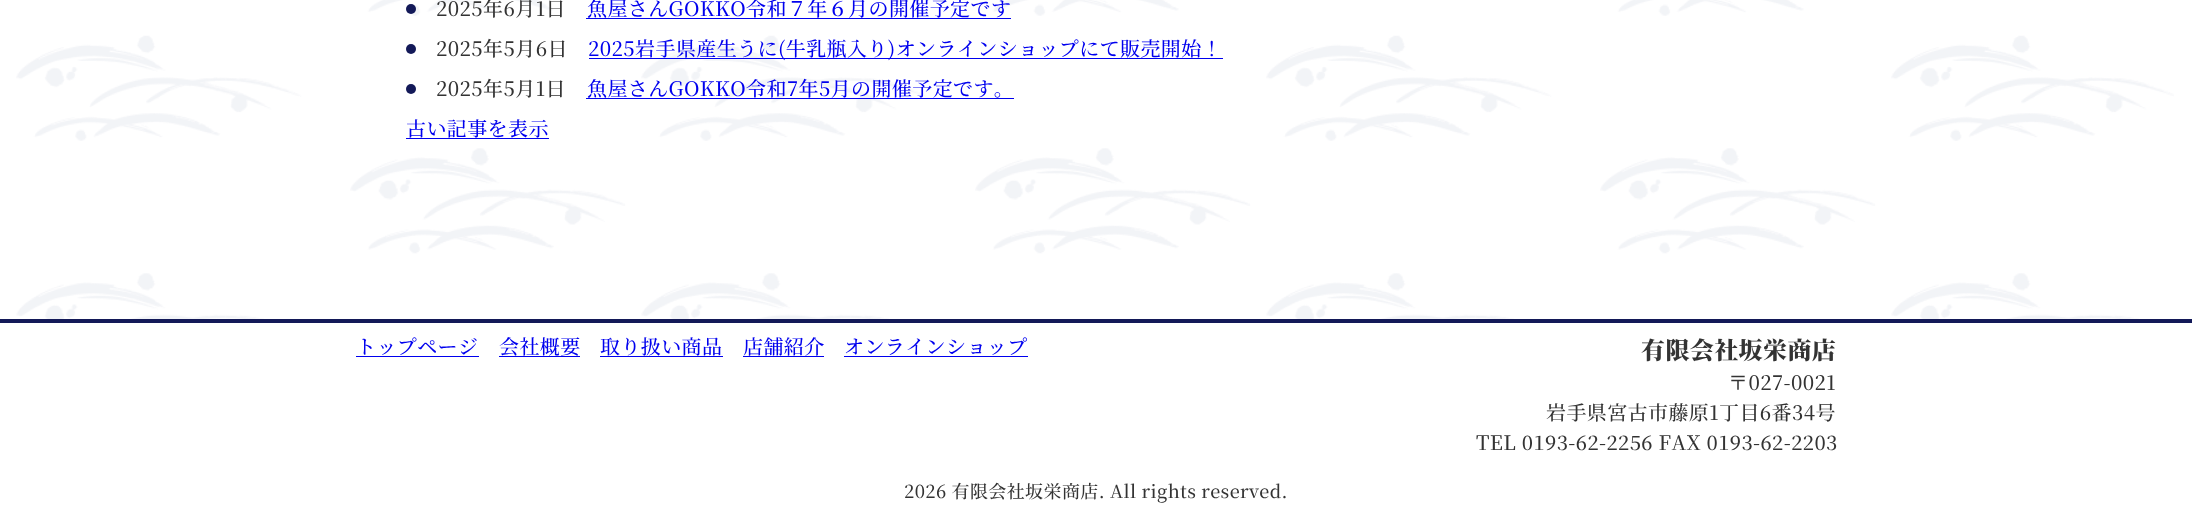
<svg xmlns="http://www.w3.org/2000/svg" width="2192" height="512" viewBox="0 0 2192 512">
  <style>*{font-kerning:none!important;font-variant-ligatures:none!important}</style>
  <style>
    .t1 { font: 500 20px Noto Serif JP; letter-spacing: 0.4px; fill: #333; }
    .t2 { font: 500 20px Noto Serif JP; letter-spacing: 0.4px; fill: #00e; }
    .t3 { font: 900 24px Noto Serif JP; letter-spacing: 0.4px; fill: #333; }
    .t4 { font: 500 18px Noto Serif JP; letter-spacing: 0.4px; fill: #333; }
  </style>
  <rect width="100%" height="100%" fill="#fff"/>
  <image x="16" y="0" width="2158" height="319" href="images/1.png"/>
  <rect x="0" y="319" width="2192" height="4" fill="#131958"/>
  <circle cx="411" cy="9" r="5" fill="#131958"/>
  <text x="436" y="16" class="t1">2025年6月1日</text>
  <text x="587" y="16" class="t2">魚屋さんGOKKO令和７年６月の開催予定です</text>
  <rect x="586" y="18" width="425" height="1" fill="#00e"/>
  <circle cx="411" cy="49" r="5" fill="#131958"/>
  <text x="436" y="56" class="t1">2025年5月6日</text>
  <rect x="589" y="58" width="634" height="1" fill="#00e"/>
  <text x="588" y="56" class="t2">2025岩手県産生うに(牛乳瓶入り)オンラインショップにて販売開始！</text>
  <circle cx="411" cy="89" r="5" fill="#131958"/>
  <text x="436" y="96" class="t1">2025年5月1日</text>
  <text x="587" y="96" class="t2">魚屋さんGOKKO令和7年5月の開催予定です。</text>
  <rect x="586" y="98" width="428" height="1" fill="#00e"/>
  <text x="406" y="136" class="t2">古い記事を表示</text>
  <rect x="406" y="138" width="143" height="1" fill="#00e"/>
  <text x="356" y="354" class="t2">トップページ</text>
  <rect x="356" y="356" width="123" height="1" fill="#00e"/>
  <text x="499" y="354" class="t2">会社概要</text>
  <rect x="499" y="356" width="81" height="1" fill="#00e"/>
  <text x="600" y="354" class="t2">取り扱い商品</text>
  <rect x="600" y="356" width="123" height="1" fill="#00e"/>
  <text x="743" y="354" class="t2">店舗紹介</text>
  <rect x="743" y="356" width="81" height="1" fill="#00e"/>
  <text x="844" y="354" class="t2">オンラインショップ</text>
  <rect x="844" y="356" width="184" height="1" fill="#00e"/>
  <text x="1641" y="359" class="t3">有限会社坂栄商店</text>
  <text x="1728" y="390" class="t1">〒027-0021</text>
  <text x="1546" y="420" class="t1">岩手県宮古市藤原1丁目6番34号</text>
  <text x="1476" y="450" class="t1">TEL 0193-62-2256 FAX 0193-62-2203</text>
  <text x="904" y="498" class="t4">2026 有限会社坂栄商店. All rights reserved.</text>
</svg>
